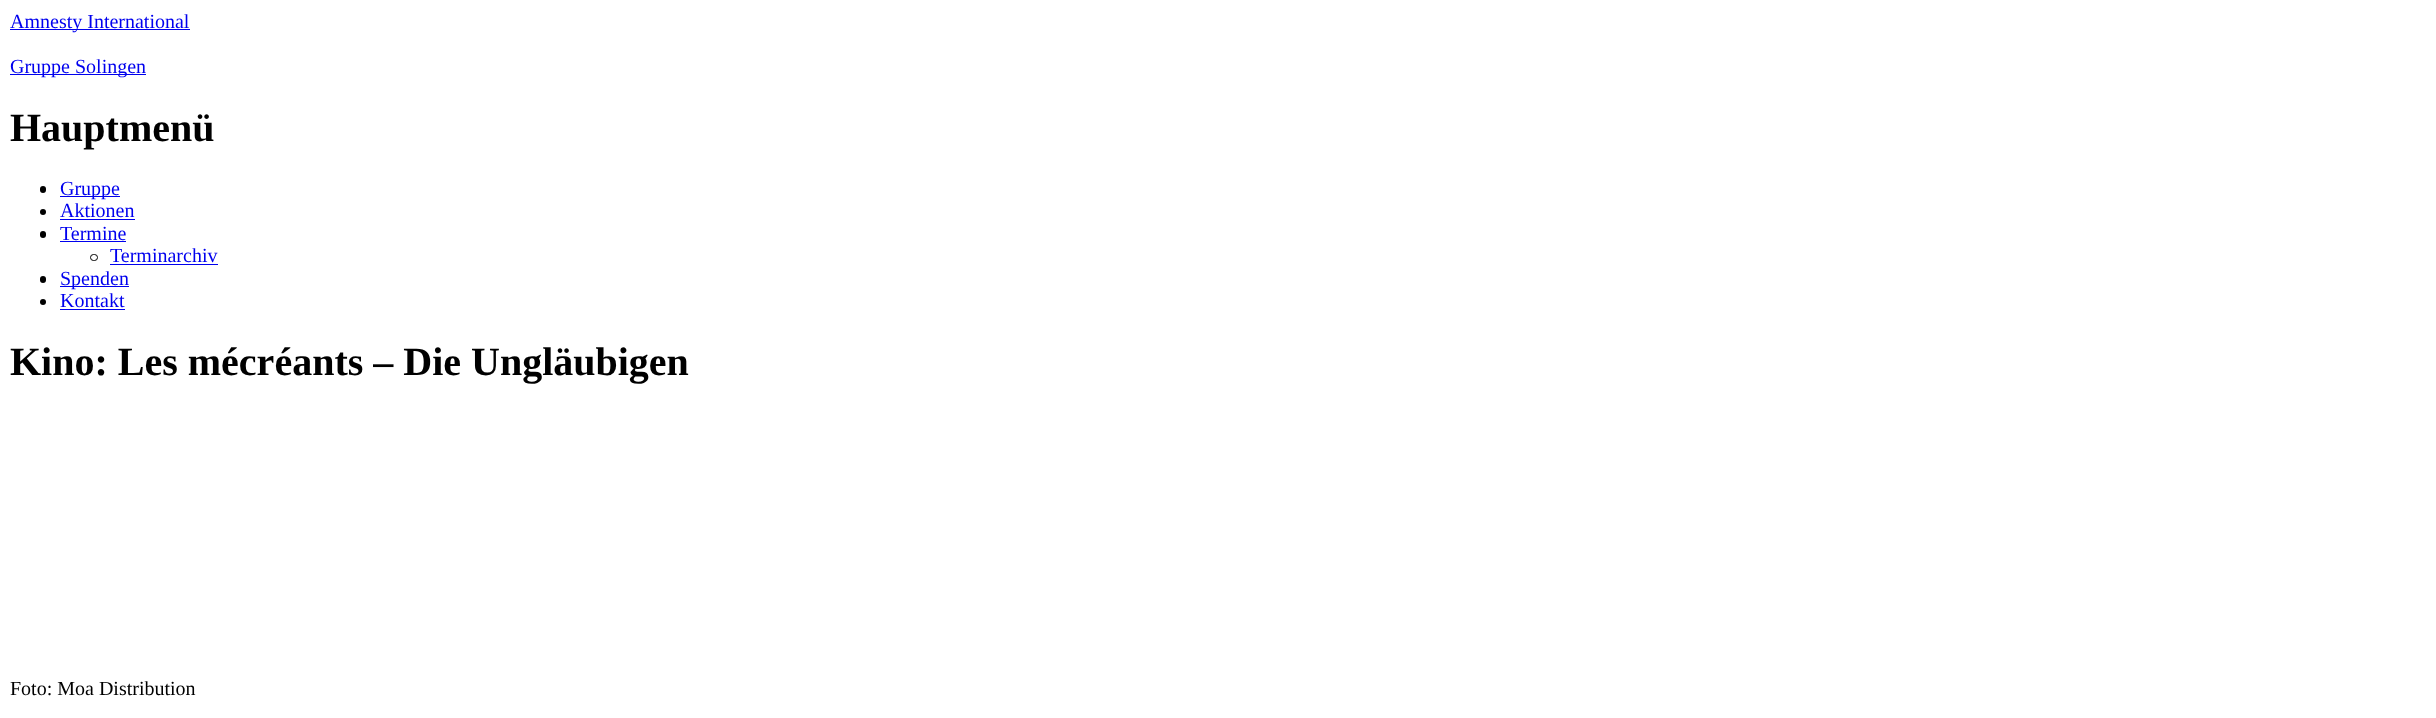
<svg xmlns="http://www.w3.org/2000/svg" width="2436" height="718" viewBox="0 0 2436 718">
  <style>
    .t1 { font: 20px Liberation Serif; fill: #00e; }
    .t2 { font: bold 40px Liberation Serif; fill: #000; }
    .t3 { font: 20px Liberation Serif; fill: #000; }
  </style>
  <rect width="100%" height="100%" fill="#fff"/>
  <rect x="10" y="29" width="180" height="1" fill="#00e"/>
  <text x="10" y="28" class="t1">Amnesty International</text>
  <rect x="10" y="74" width="136" height="1" fill="#00e"/>
  <text x="10" y="73" class="t1">Gruppe Solingen</text>
  <text x="10" y="141" class="t2">Hauptmenü</text>
  <rect x="40" y="186" width="6" height="7" rx="3" fill="#000"/>
  <rect x="60" y="196" width="60" height="1" fill="#00e"/>
  <text x="60" y="195" class="t1">Gruppe</text>
  <circle cx="43" cy="212" r="3" fill="#000"/>
  <text x="60" y="217" class="t1">Aktionen</text>
  <rect x="60" y="219" width="75" height="1" fill="#00e"/>
  <rect x="40" y="231" width="6" height="7" rx="3" fill="#000"/>
  <text x="60" y="240" class="t1">Termine</text>
  <rect x="60" y="241" width="66" height="1" fill="#00e"/>
  <rect x="90.5" y="254.5" width="7" height="6" rx="3" fill="none" stroke="#000"/>
  <text x="110" y="262" class="t1">Terminarchiv</text>
  <rect x="110" y="264" width="108" height="1" fill="#00e"/>
  <rect x="40" y="276" width="6" height="7" rx="3" fill="#000"/>
  <rect x="60" y="286" width="69" height="1" fill="#00e"/>
  <text x="60" y="285" class="t1">Spenden</text>
  <circle cx="43" cy="302" r="3" fill="#000"/>
  <text x="60" y="307" class="t1">Kontakt</text>
  <rect x="60" y="309" width="65" height="1" fill="#00e"/>
  <text x="10" y="375" class="t2">Kino: Les mécréants – Die Ungläubigen</text>
  <text x="10" y="695" class="t3">Foto: Moa Distribution</text>
</svg>
